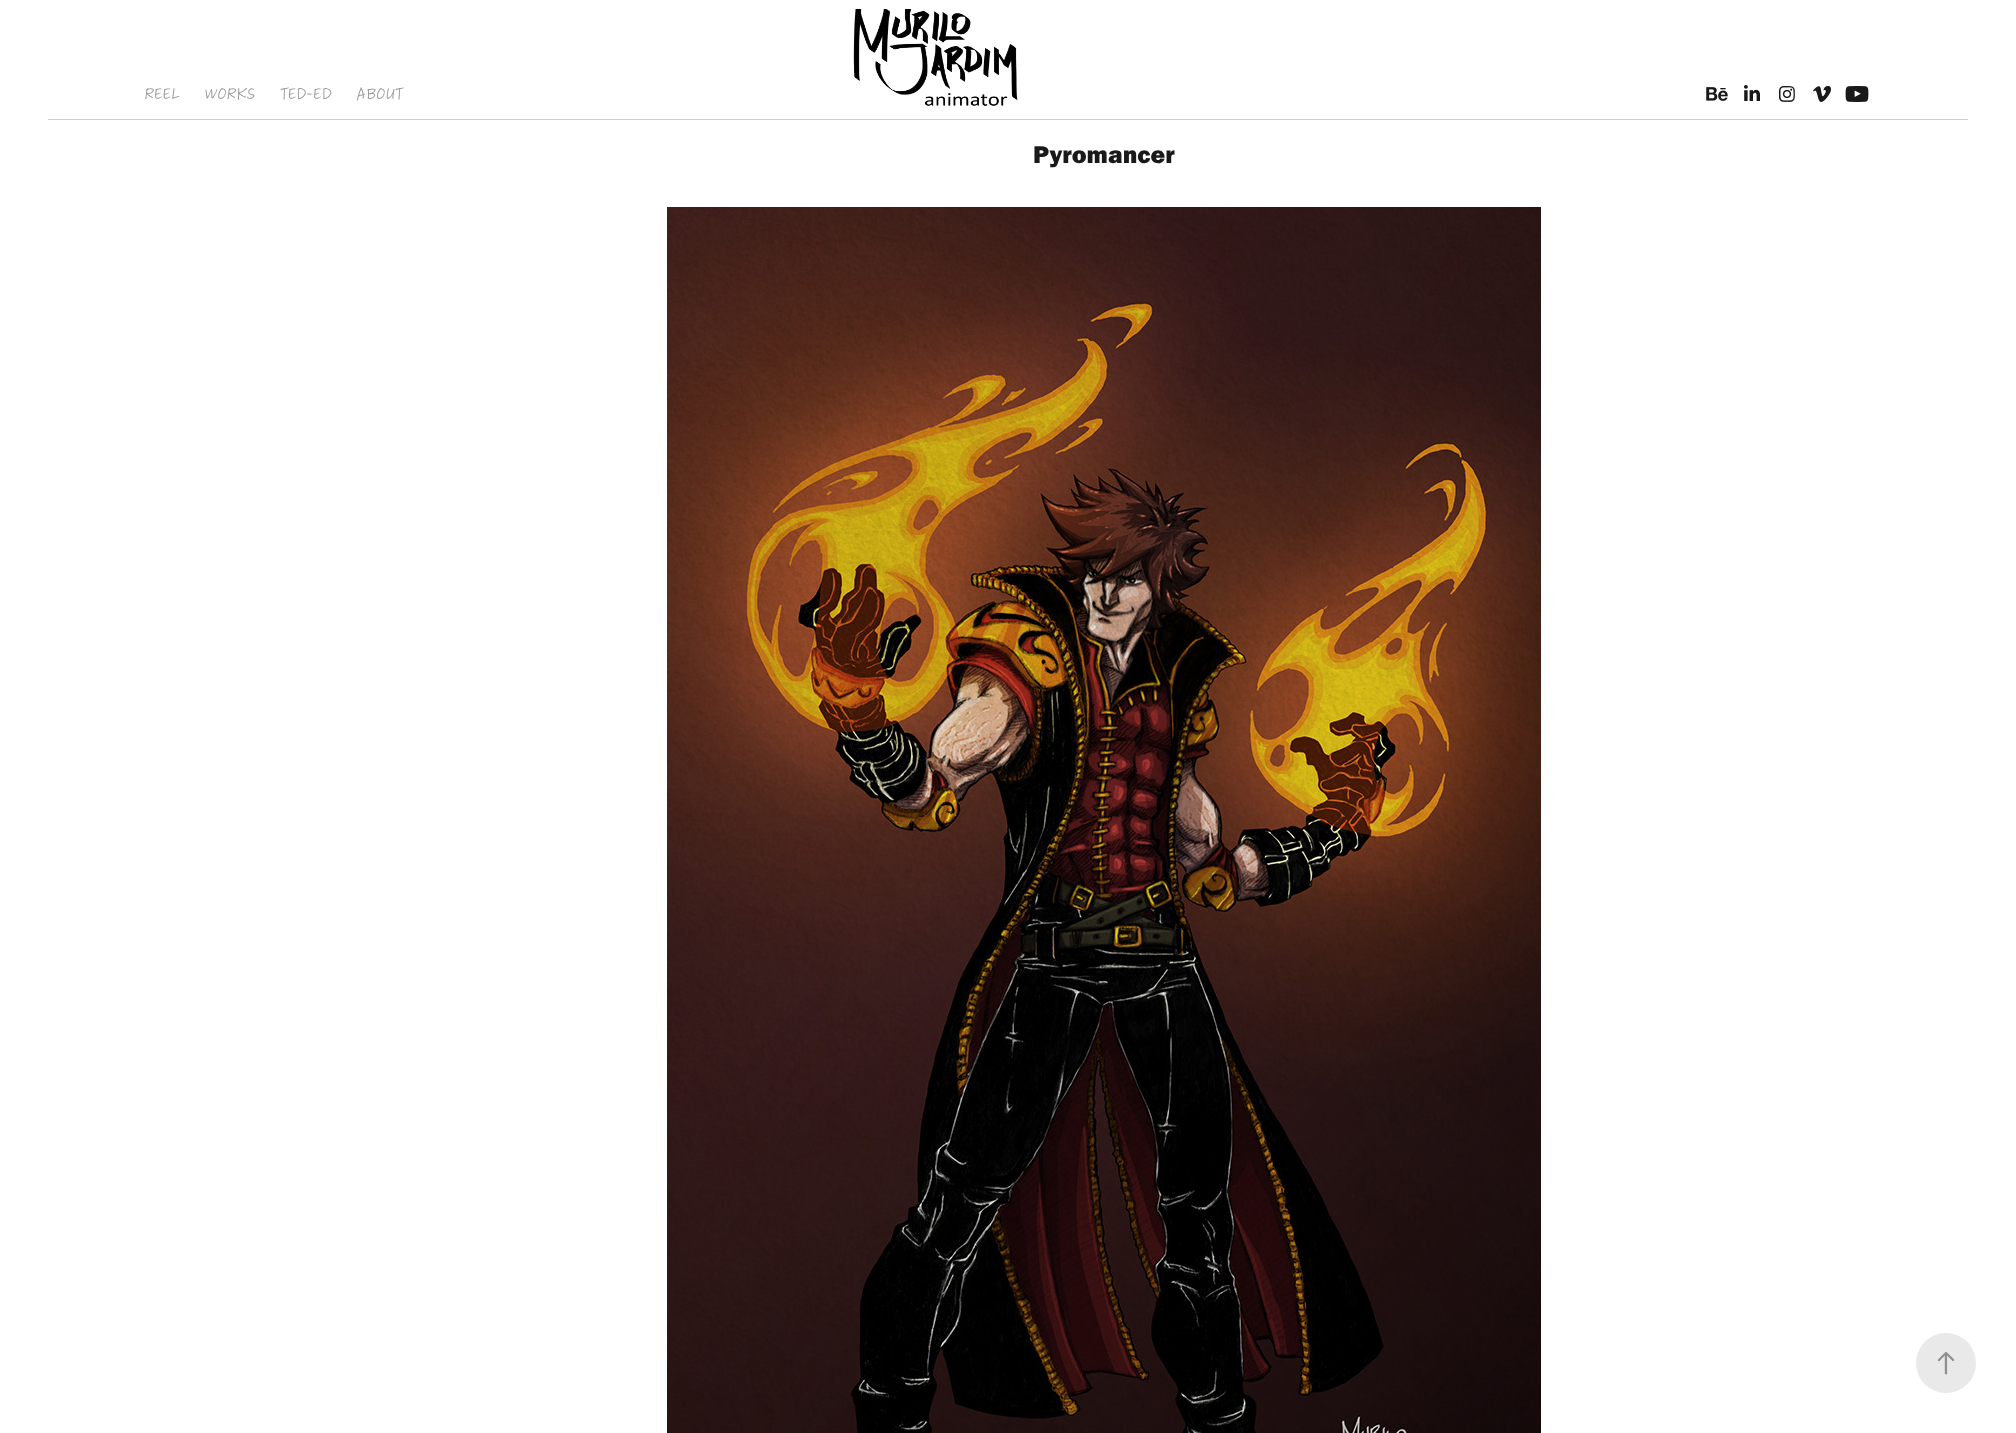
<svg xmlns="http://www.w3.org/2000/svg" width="2016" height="1433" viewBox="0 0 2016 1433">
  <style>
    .t1 { font: 17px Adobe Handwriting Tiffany; fill: #999; }
    .t2 { font: 900 25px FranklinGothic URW; fill: #191919; }
  </style>
  <rect width="100%" height="100%" fill="#fff"/>
  <rect x="48" y="119" width="1920" height="1" fill="#ccc"/>
  <text x="144" y="99" class="t1">REEL</text>
  <text x="204" y="99" class="t1">WORKS</text>
  <text x="280" y="99" class="t1">TED-ED</text>
  <text x="356" y="99" class="t1">ABOUT</text>
  <image x="853" y="9" width="165" height="97" href="images/1.png"/>
  <image x="1706" y="87" width="22" height="14" href="images/2.png"/>
  <image x="1744" y="85" width="16" height="16" href="images/3.png"/>
  <image x="1779" y="86" width="16" height="16" href="images/4.png"/>
  <image x="1813" y="86" width="18" height="16" href="images/5.png"/>
  <image x="1845" y="86" width="24" height="16" href="images/6.png"/>
  <text x="1033" y="163" class="t2">Pyromancer</text>
  <image x="667" y="207" width="874" height="1226" href="images/7.png"/>
  <circle cx="1946" cy="1363" r="30" fill="#e9e9e9"/>
  <image x="1937" y="1352" width="18" height="23" href="images/8.png"/>
</svg>
